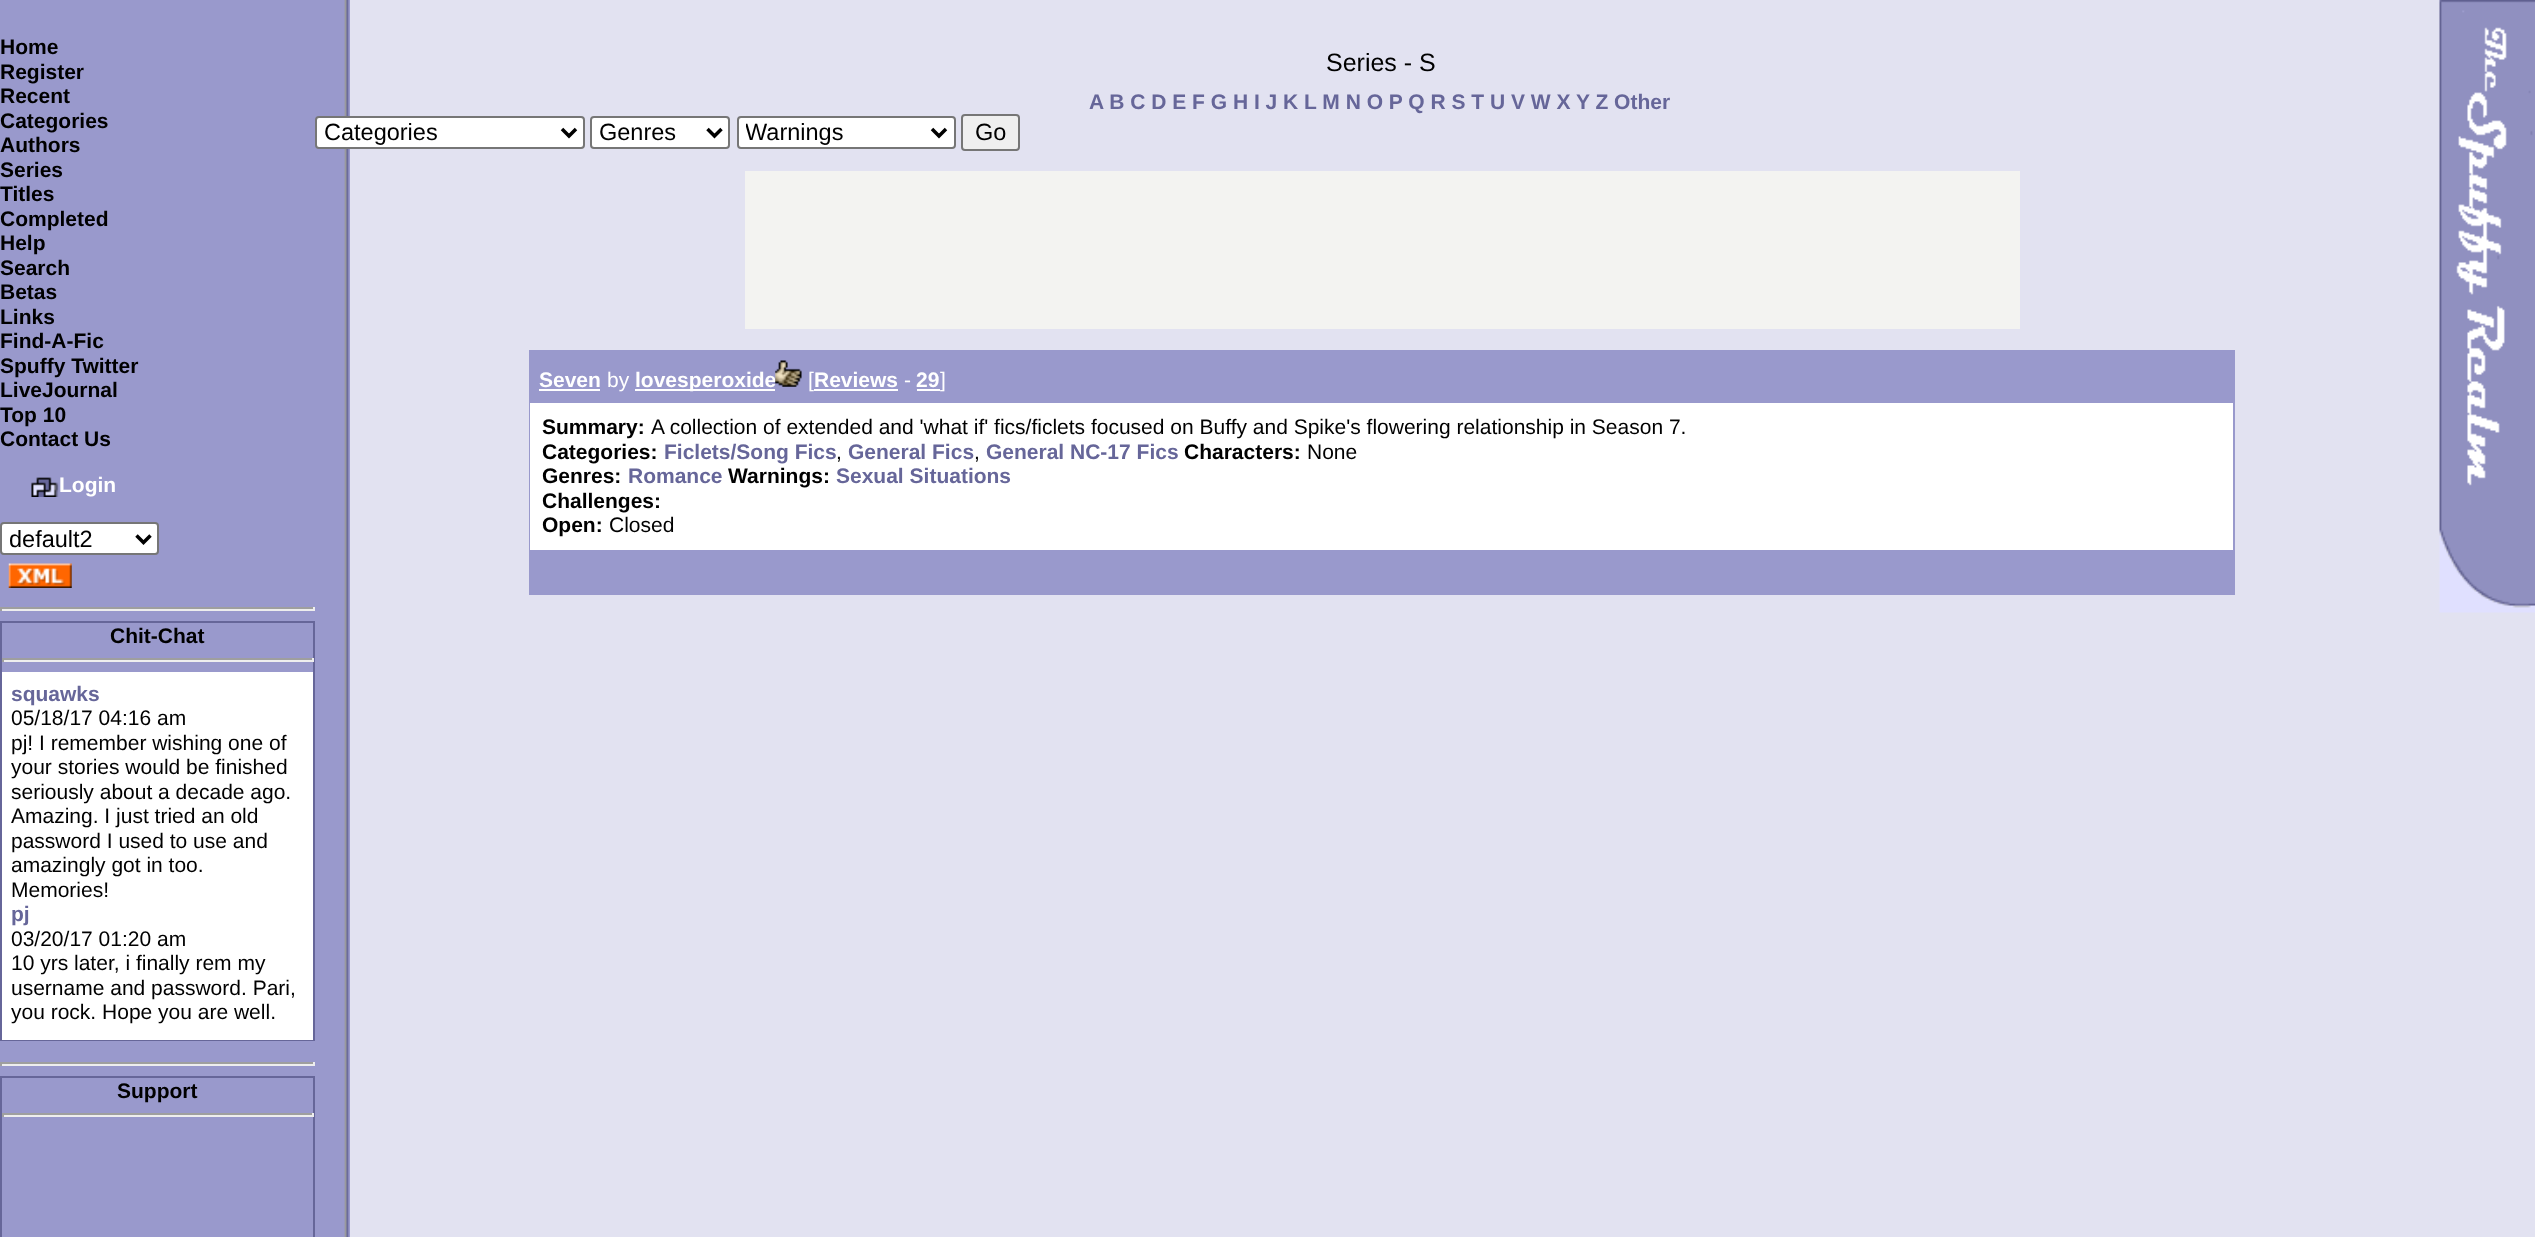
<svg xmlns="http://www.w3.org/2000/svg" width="2535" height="1237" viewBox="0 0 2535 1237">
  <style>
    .t1 { font: bold 21px Liberation Sans; fill: #000; }
    .t2 { font: bold 21px Liberation Sans; fill: #fff; }
    .t3 { font: 23.5px Liberation Sans; fill: #000; }
    .t4 { font: bold 21px Liberation Sans; fill: #669; }
    .t5 { font: 21px Liberation Sans; fill: #000; }
    .t6 { font: 25px Liberation Sans; fill: #000; }
    .t7 { font: 21px Liberation Sans; fill: #fff; }
  </style>
  <defs>
    <clipPath id="clip1"><rect x="746" y="117" width="180" height="30"/></clipPath>
  </defs>
  <rect width="100%" height="100%" fill="#e2e2f1"/>
  <image x="0" y="0" width="350" height="1237" href="images/1.png"/>
  <text x="0" y="54" class="t1">Home</text>
  <text x="0" y="79" class="t1">Register</text>
  <text x="0" y="103" class="t1">Recent</text>
  <text x="0" y="128" class="t1">Categories</text>
  <text x="0" y="152" class="t1">Authors</text>
  <text x="0" y="177" class="t1">Series</text>
  <text x="0" y="201" class="t1">Titles</text>
  <text x="0" y="226" class="t1">Completed</text>
  <text x="0" y="250" class="t1">Help</text>
  <text x="0" y="275" class="t1">Search</text>
  <text x="0" y="299" class="t1">Betas</text>
  <text x="0" y="324" class="t1">Links</text>
  <text x="0" y="348" class="t1">Find-A-Fic</text>
  <text x="0" y="373" class="t1">Spuffy Twitter</text>
  <text x="0" y="397" class="t1">LiveJournal</text>
  <text x="0" y="422" class="t1">Top 10</text>
  <text x="0" y="446" class="t1">Contact Us</text>
  <image x="31" y="477" width="28" height="20" href="images/2.png"/>
  <text x="59" y="492" class="t2">Login</text>
  <rect x="1" y="523" width="157" height="31" rx="3" fill="#fff" stroke="#767676" stroke-width="2"/>
  <path d="M136.5 535.5L143.5 542.5L150.5 535.5" fill="none" stroke="#000" stroke-width="3.5"/>
  <text x="9" y="547" class="t3">default2</text>
  <image x="8" y="563" width="64" height="25" href="images/3.png"/>
  <rect x="0" y="607" width="315" height="2" fill="#9f9f9f"/>
  <rect x="313" y="607" width="2" height="4" fill="#eee"/>
  <rect x="0" y="609" width="315" height="2" fill="#eee"/>
  <rect x="0" y="607" width="2" height="4" fill="#9f9f9f"/>
  <rect x="1" y="622" width="313" height="418" fill="none" stroke="#669" stroke-width="2"/>
  <text x="110" y="643" class="t1">Chit-Chat</text>
  <rect x="2" y="658" width="311" height="2" fill="#9f9f9f"/>
  <rect x="312" y="658" width="2" height="4" fill="#eee"/>
  <rect x="2" y="660" width="311" height="2" fill="#eee"/>
  <rect x="2" y="658" width="2" height="4" fill="#9f9f9f"/>
  <rect x="2" y="672" width="311" height="368" fill="#fff"/>
  <text x="11" y="701" class="t4">squawks</text>
  <text x="11" y="725" class="t5">05/18/17 04:16 am</text>
  <text x="11" y="750" class="t5">pj! I remember wishing one of</text>
  <text x="11" y="774" class="t5">your stories would be finished</text>
  <text x="11" y="799" class="t5">seriously about a decade ago.</text>
  <text x="11" y="823" class="t5">Amazing. I just tried an old</text>
  <text x="11" y="848" class="t5">password I used to use and</text>
  <text x="11" y="872" class="t5">amazingly got in too.</text>
  <text x="11" y="897" class="t5">Memories!</text>
  <text x="11" y="921" class="t4">pj</text>
  <text x="11" y="946" class="t5">03/20/17 01:20 am</text>
  <text x="11" y="970" class="t5">10 yrs later, i finally rem my</text>
  <text x="11" y="995" class="t5">username and password. Pari,</text>
  <text x="11" y="1019" class="t5">you rock. Hope you are well.</text>
  <rect x="0" y="1062" width="315" height="2" fill="#9f9f9f"/>
  <rect x="313" y="1062" width="2" height="4" fill="#eee"/>
  <rect x="0" y="1064" width="315" height="2" fill="#eee"/>
  <rect x="0" y="1062" width="2" height="4" fill="#9f9f9f"/>
  <rect x="1" y="1077" width="313" height="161" fill="none" stroke="#669" stroke-width="2"/>
  <text x="117" y="1098" class="t1">Support</text>
  <rect x="2" y="1113" width="311" height="2" fill="#9f9f9f"/>
  <rect x="312" y="1113" width="2" height="4" fill="#eee"/>
  <rect x="2" y="1115" width="311" height="2" fill="#eee"/>
  <rect x="2" y="1113" width="2" height="4" fill="#9f9f9f"/>
  <image x="2439" y="0" width="96" height="613" href="images/4.png"/>
  <text x="1326" y="71" class="t6">Series - S</text>
  <text x="1089" y="109" class="t4">A B C D E F G H I J K L M N O P Q R S T U V W X Y Z Other</text>
  <rect x="316" y="117" width="268" height="31" rx="3" fill="#fff" stroke="#767676" stroke-width="2"/>
  <path d="M562 129L569 136L576 129" fill="none" stroke="#000" stroke-width="3.5"/>
  <text x="324" y="140" class="t3">Categories</text>
  <rect x="591" y="117" width="138" height="31" rx="3" fill="#fff" stroke="#767676" stroke-width="2"/>
  <path d="M707.5 129L714.5 136L721.5 129" fill="none" stroke="#000" stroke-width="3.5"/>
  <text x="599" y="140" class="t3">Genres</text>
  <rect x="738" y="117" width="217" height="31" rx="3" fill="#fff" stroke="#767676" stroke-width="2"/>
  <path d="M932 129L939 136L946 129" fill="none" stroke="#000" stroke-width="3.5"/>
  <g clip-path="url(#clip1)">
    <text x="745" y="140" class="t3">Warnings</text>
  </g>
  <rect x="962" y="115" width="57" height="35" rx="3" fill="#efefef" stroke="#767676" stroke-width="2"/>
  <text x="975" y="140" class="t3">Go</text>
  <rect x="745" y="171" width="1275" height="158" fill="#f3f3f1"/>
  <rect x="530" y="351" width="1704" height="243" fill="none" stroke="#99c" stroke-width="2"/>
  <rect x="531" y="352" width="1702" height="49" fill="#99c"/>
  <text x="539" y="387" class="t2">Seven</text>
  <rect x="539" y="389" width="61" height="2" fill="#fff"/>
  <text x="607" y="387" class="t7">by</text>
  <rect x="635" y="389" width="140" height="2" fill="#fff"/>
  <text x="635" y="387" class="t2">lovesperoxide</text>
  <image x="775" y="360" width="27" height="27" href="images/5.png"/>
  <text x="808" y="387" class="t7">[</text>
  <text x="814" y="387" class="t2">Reviews</text>
  <rect x="814" y="389" width="84" height="2" fill="#fff"/>
  <text x="904" y="387" class="t7">-</text>
  <text x="916" y="387" class="t2">29</text>
  <rect x="917" y="389" width="23" height="2" fill="#fff"/>
  <text x="940" y="387" class="t7">]</text>
  <rect x="530" y="403" width="1703" height="147" fill="#fff"/>
  <rect x="530" y="401" width="1703" height="2" fill="#99c"/>
  <rect x="530" y="550" width="1703" height="1" fill="#99c"/>
  <text x="542" y="434" class="t1">Summary:</text>
  <text x="651" y="434" class="t5">A collection of extended and 'what if' fics/ficlets focused on Buffy and Spike's flowering relationship in Season 7.</text>
  <text x="542" y="459" class="t1">Categories:</text>
  <text x="664" y="459" class="t4">Ficlets/Song Fics</text>
  <text x="836" y="459" class="t5">,</text>
  <text x="848" y="459" class="t4">General Fics</text>
  <text x="974" y="459" class="t5">,</text>
  <text x="986" y="459" class="t4">General NC-17 Fics</text>
  <text x="1184" y="459" class="t1">Characters:</text>
  <text x="1307" y="459" class="t5">None</text>
  <text x="542" y="483" class="t1">Genres:</text>
  <text x="628" y="483" class="t4">Romance</text>
  <text x="728" y="483" class="t1">Warnings:</text>
  <text x="836" y="483" class="t4">Sexual Situations</text>
  <text x="542" y="508" class="t1">Challenges:</text>
  <text x="542" y="532" class="t1">Open:</text>
  <text x="609" y="532" class="t5">Closed</text>
  <rect x="531" y="551" width="1702" height="42" fill="#99c"/>
</svg>
